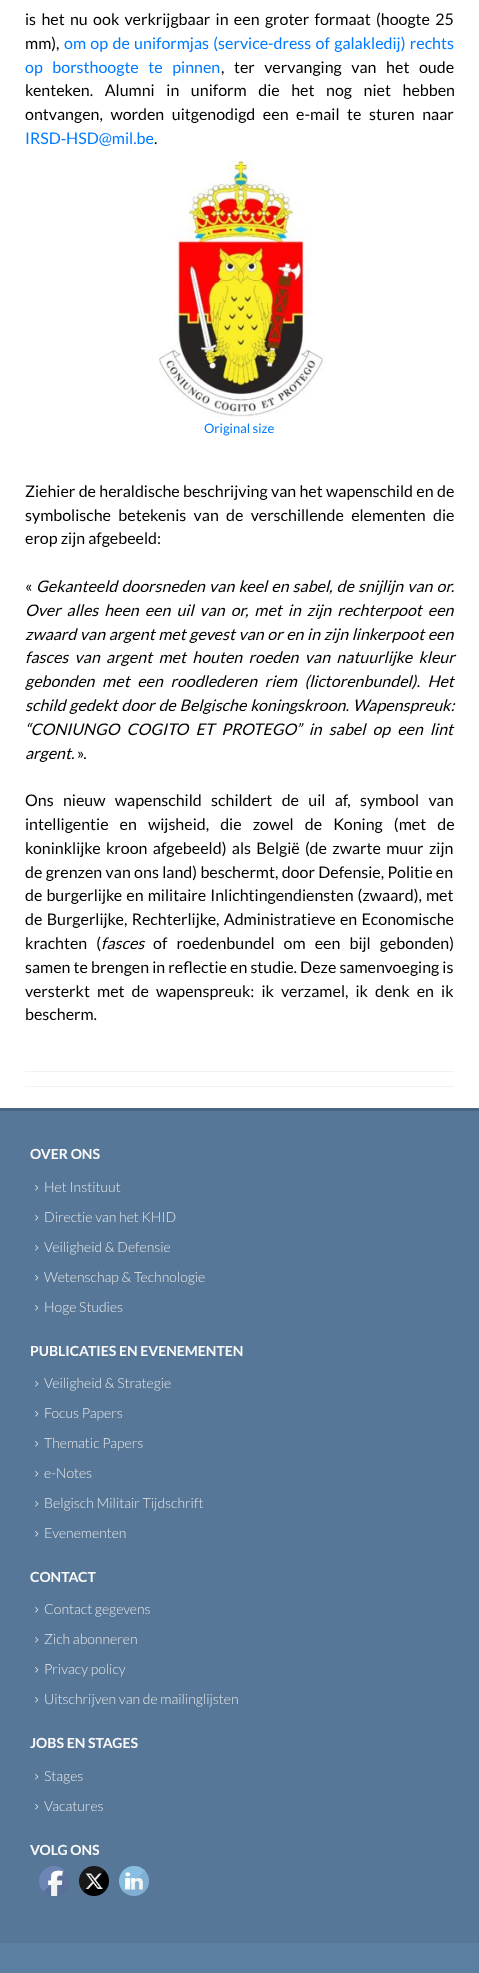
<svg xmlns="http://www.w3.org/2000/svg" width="479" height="1973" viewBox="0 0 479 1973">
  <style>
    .t1 { font: 16px Lato; fill: #000; }
    .t2 { font: 16px Lato; fill: #007bff; }
    .t3 { font: 13px Lato; fill: #007bff; }
    .t4 { font: italic 16px Lato; fill: #000; }
    .t5 { font: bold 14px Lato; fill: #fafafa; }
    .t6 { font: 300 14px Lato; fill: #e6e6e6; }
  </style>
  <rect width="100%" height="100%" fill="#fff"/>
  <text x="25" y="25" word-spacing="2.25" class="t1">is het nu ook verkrijgbaar in een groter formaat (hoogte 25</text>
  <text x="25" y="49" class="t1">mm),</text>
  <text x="64" y="49" word-spacing="1.25" class="t2">om op de uniformjas (service-dress of galakledij) rechts</text>
  <text x="25" y="73" word-spacing="6.5" class="t2">op borsthoogte te pinnen</text>
  <text x="221" y="73" word-spacing="6.5" class="t1">, ter vervanging van het oude</text>
  <text x="25" y="96" word-spacing="8.5" class="t1">kenteken. Alumni in uniform die het nog niet hebben</text>
  <text x="25" y="120" word-spacing="4.5" class="t1">ontvangen, worden uitgenodigd een e-mail te sturen naar</text>
  <text x="25" y="144" class="t2">IRSD‑HSD@mil.be</text>
  <text x="154" y="144" class="t1">.</text>
  <image x="158" y="160" width="167" height="257" href="images/1.png"/>
  <text x="204" y="433" class="t3">Original size</text>
  <text x="25" y="497" word-spacing="0.25" class="t1">Ziehier de heraldische beschrijving van het wapenschild en de</text>
  <text x="25" y="521" word-spacing="4.25" class="t1">symbolische betekenis van de verschillende elementen die</text>
  <text x="25" y="544" class="t1">erop zijn afgebeeld:</text>
  <text x="25" y="592" class="t1">«</text>
  <text x="36" y="592" word-spacing="1" class="t4">Gekanteeld doorsneden van keel en sabel, de snijlijn van or.</text>
  <text x="25" y="616" word-spacing="2.9" class="t4">Over alles heen een uil van or, met in zijn rechterpoot een</text>
  <text x="25" y="640" word-spacing="0.5" class="t4">zwaard van argent met gevest van or en in zijn linkerpoot een</text>
  <text x="25" y="663" word-spacing="3.25" class="t4">fasces van argent met houten roeden van natuurlijke kleur</text>
  <text x="25" y="687" word-spacing="4.5" class="t4">gebonden met een roodlederen riem (lictorenbundel). Het</text>
  <text x="25" y="711" word-spacing="0.75" class="t4">schild gedekt door de Belgische koningskroon. Wapenspreuk:</text>
  <text x="25" y="735" word-spacing="4" class="t4">“CONIUNGO COGITO ET PROTEGO” in sabel op een lint</text>
  <text x="25" y="759" class="t4">argent.</text>
  <text x="77" y="759" class="t1">».</text>
  <text x="25" y="806" word-spacing="6.25" class="t1">Ons nieuw wapenschild schildert de uil af, symbool van</text>
  <text x="25" y="830" word-spacing="8" class="t1">intelligentie en wijsheid, die zowel de Koning (met de</text>
  <text x="25" y="854" word-spacing="2.25" class="t1">koninklijke kroon afgebeeld) als België (de zwarte muur zijn</text>
  <text x="25" y="878" word-spacing="0.25" class="t1">de grenzen van ons land) beschermt, door Defensie, Politie en</text>
  <text x="25" y="901" word-spacing="1" class="t1">de burgerlijke en militaire Inlichtingendiensten (zwaard), met</text>
  <text x="25" y="925" word-spacing="1.25" class="t1">de Burgerlijke, Rechterlijke, Administratieve en Economische</text>
  <text x="25" y="949" word-spacing="6" class="t1">krachten (</text>
  <text x="101" y="949" class="t4">fasces</text>
  <text x="153" y="949" word-spacing="6" class="t1">of roedenbundel om een bijl gebonden)</text>
  <text x="25" y="973" class="t1">samen te brengen in reflectie en studie. Deze samenvoeging is</text>
  <text x="25" y="997" word-spacing="4" class="t1">versterkt met de wapenspreuk: ik verzamel, ik denk en ik</text>
  <text x="25" y="1020" class="t1">bescherm.</text>
  <rect x="25" y="1071" width="429" height="1" fill="#f2f2f2"/>
  <rect x="25" y="1086" width="429" height="1" fill="#f2f2f2"/>
  <rect x="0" y="1111" width="479" height="832" fill="#567798"/>
  <rect x="0" y="1108" width="479" height="3" fill="#496581"/>
  <text x="30" y="1159" class="t5">OVER ONS</text>
  <image x="35" y="1185" width="4" height="6" href="images/2.png"/>
  <text x="44" y="1192" class="t6">Het Instituut</text>
  <image x="35" y="1215" width="4" height="6" href="images/2.png"/>
  <text x="44" y="1222" class="t6">Directie van het KHID</text>
  <image x="35" y="1245" width="4" height="6" href="images/2.png"/>
  <text x="44" y="1252" class="t6">Veiligheid &amp; Defensie</text>
  <image x="35" y="1275" width="4" height="6" href="images/2.png"/>
  <text x="44" y="1282" class="t6">Wetenschap &amp; Technologie</text>
  <image x="35" y="1305" width="4" height="6" href="images/2.png"/>
  <text x="44" y="1312" class="t6">Hoge Studies</text>
  <text x="30" y="1356" class="t5">PUBLICATIES EN EVENEMENTEN</text>
  <image x="35" y="1381" width="4" height="6" href="images/2.png"/>
  <text x="44" y="1388" class="t6">Veiligheid &amp; Strategie</text>
  <image x="35" y="1411" width="4" height="6" href="images/2.png"/>
  <text x="44" y="1418" class="t6">Focus Papers</text>
  <image x="35" y="1441" width="4" height="6" href="images/2.png"/>
  <text x="44" y="1448" class="t6">Thematic Papers</text>
  <image x="35" y="1471" width="4" height="6" href="images/2.png"/>
  <text x="44" y="1478" class="t6">e-Notes</text>
  <image x="35" y="1501" width="4" height="6" href="images/2.png"/>
  <text x="44" y="1508" class="t6">Belgisch Militair Tijdschrift</text>
  <image x="35" y="1531" width="4" height="6" href="images/2.png"/>
  <text x="44" y="1538" class="t6">Evenementen</text>
  <text x="30" y="1582" class="t5">CONTACT</text>
  <image x="35" y="1607" width="4" height="6" href="images/2.png"/>
  <text x="44" y="1614" class="t6">Contact gegevens</text>
  <image x="35" y="1637" width="4" height="6" href="images/2.png"/>
  <text x="44" y="1644" class="t6">Zich abonneren</text>
  <image x="35" y="1667" width="4" height="6" href="images/2.png"/>
  <text x="44" y="1674" class="t6">Privacy policy</text>
  <image x="35" y="1697" width="4" height="6" href="images/2.png"/>
  <text x="44" y="1704" class="t6">Uitschrijven van de mailinglijsten</text>
  <text x="30" y="1748" class="t5">JOBS EN STAGES</text>
  <image x="35" y="1774" width="4" height="6" href="images/2.png"/>
  <text x="44" y="1781" class="t6">Stages</text>
  <image x="35" y="1804" width="4" height="6" href="images/2.png"/>
  <text x="44" y="1811" class="t6">Vacatures</text>
  <text x="30" y="1855" class="t5">VOLG ONS</text>
  <image x="39" y="1866" width="30" height="30" href="images/3.png"/>
  <image x="79" y="1866" width="30" height="30" href="images/4.png"/>
  <image x="119" y="1866" width="30" height="30" href="images/5.png"/>
  <rect x="0" y="1943" width="479" height="30" fill="#5c7fa1"/>
</svg>
